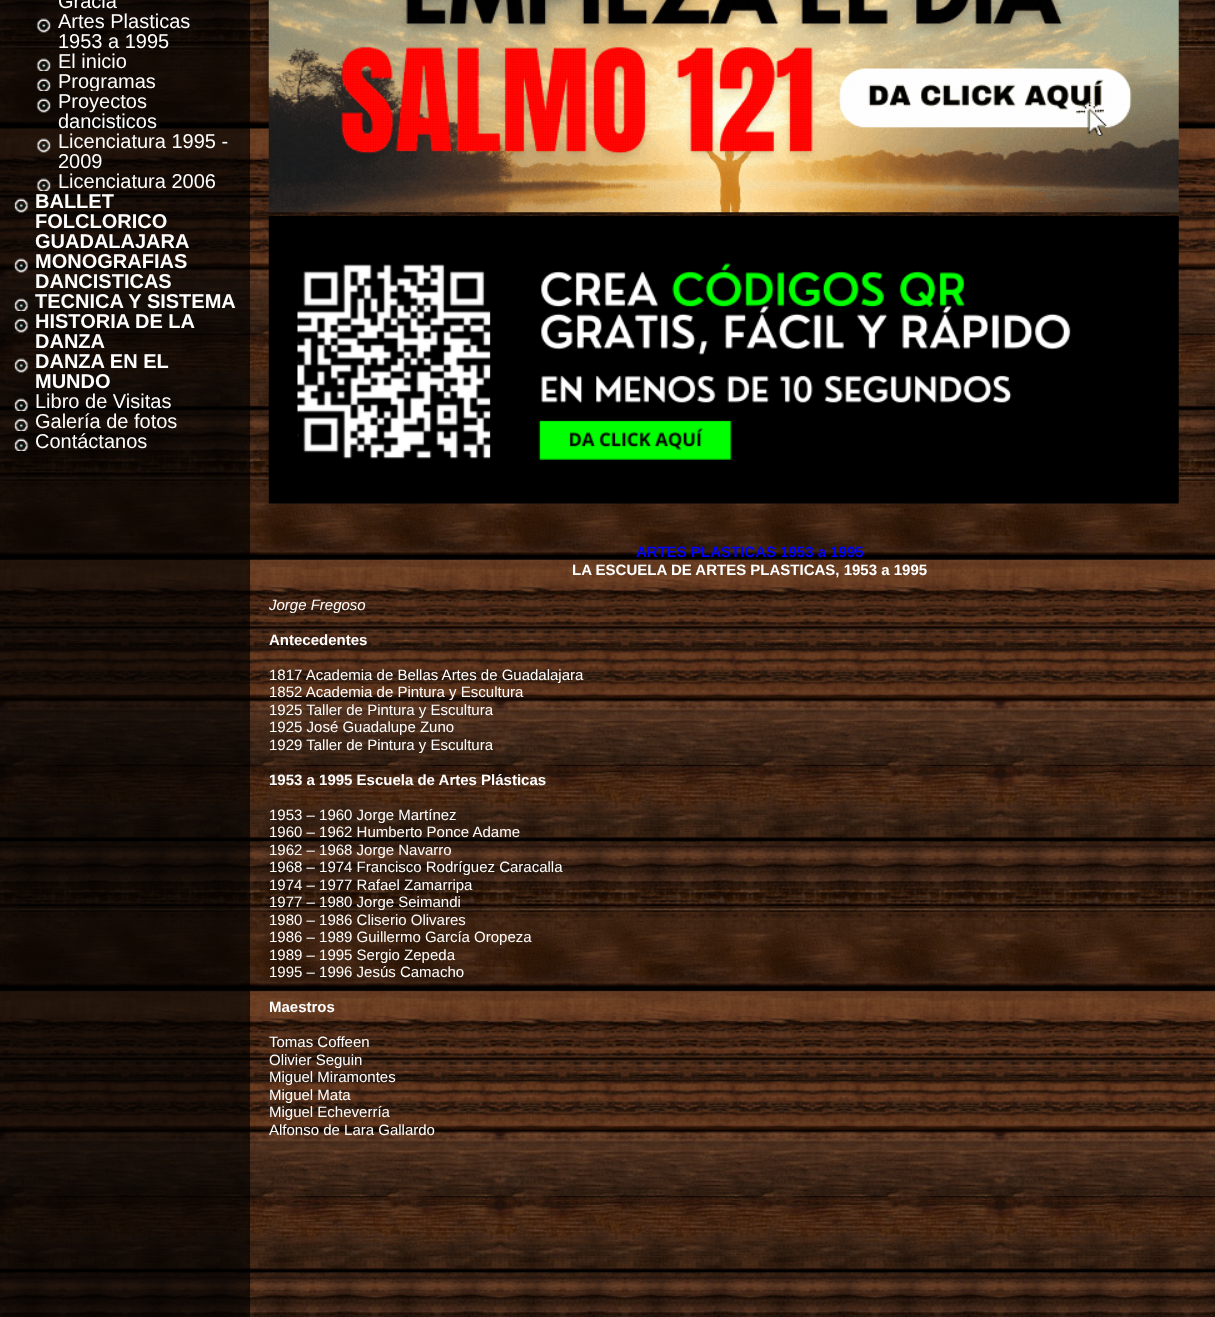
<svg xmlns="http://www.w3.org/2000/svg" width="1215" height="1317" viewBox="0 0 1215 1317">
  <style>
    .t1 { font: 20px Liberation Sans; fill: #fff; }
    .t2 { font: bold 20px Liberation Sans; fill: #fff; }
    .t3 { font: bold 15px Liberation Sans; fill: #00f; }
    .t4 { font: bold 15px Liberation Sans; fill: #fff; }
    .t5 { font: italic 15px Liberation Sans; fill: #fff; }
    .t6 { font: 15px Liberation Sans; fill: #fff; }
  </style>
  <defs>
    <clipPath id="clip1"><rect x="35" y="71" width="203" height="20"/></clipPath>
  </defs>
  <rect width="100%" height="100%" fill="#fff"/>
  <image x="0" y="0" width="1215" height="1317" href="images/1.png"/>
  <rect x="0" y="0" width="250" height="1317" fill="#000000cc"/>
  <text x="58" y="8" class="t1">Gracia</text>
  <image x="36" y="18" width="16" height="15" href="images/2.png"/>
  <text x="58" y="28" class="t1">Artes Plasticas</text>
  <text x="58" y="48" class="t1">1953 a 1995</text>
  <image x="36" y="58" width="16" height="13" href="images/3.png"/>
  <text x="58" y="68" class="t1">El inicio</text>
  <image x="36" y="78" width="16" height="13" href="images/4.png"/>
  <g clip-path="url(#clip1)">
    <text x="58" y="88" class="t1">Programas</text>
  </g>
  <image x="36" y="98" width="16" height="15" href="images/5.png"/>
  <text x="58" y="108" class="t1">Proyectos</text>
  <text x="58" y="128" class="t1">dancisticos</text>
  <image x="36" y="138" width="16" height="15" href="images/6.png"/>
  <text x="58" y="148" class="t1">Licenciatura 1995 -</text>
  <text x="58" y="168" class="t1">2009</text>
  <image x="36" y="178" width="16" height="13" href="images/7.png"/>
  <text x="58" y="188" class="t1">Licenciatura 2006</text>
  <image x="13" y="198" width="16" height="15" href="images/8.png"/>
  <text x="35" y="208" class="t2">BALLET</text>
  <text x="35" y="228" class="t2">FOLCLORICO</text>
  <text x="35" y="248" class="t2">GUADALAJARA</text>
  <image x="13" y="258" width="16" height="15" href="images/9.png"/>
  <text x="35" y="268" class="t2">MONOGRAFIAS</text>
  <text x="35" y="288" class="t2">DANCISTICAS</text>
  <image x="13" y="298" width="16" height="13" href="images/10.png"/>
  <text x="35" y="308" class="t2">TECNICA Y SISTEMA</text>
  <image x="13" y="318" width="16" height="15" href="images/11.png"/>
  <text x="35" y="328" class="t2">HISTORIA DE LA</text>
  <text x="35" y="348" class="t2">DANZA</text>
  <image x="13" y="358" width="16" height="15" href="images/12.png"/>
  <text x="35" y="368" class="t2">DANZA EN EL</text>
  <text x="35" y="388" class="t2">MUNDO</text>
  <image x="13" y="398" width="16" height="13" href="images/13.png"/>
  <text x="35" y="408" class="t1">Libro de Visitas</text>
  <image x="13" y="418" width="16" height="13" href="images/14.png"/>
  <text x="35" y="428" class="t1">Galería de fotos</text>
  <image x="13" y="438" width="16" height="13" href="images/15.png"/>
  <text x="35" y="448" class="t1">Contáctanos</text>
  <rect x="250" y="0" width="965" height="1317" fill="#00000066"/>
  <image x="268" y="0" width="911" height="213" href="images/16.png"/>
  <image x="268" y="216" width="911" height="288" href="images/17.png"/>
  <text x="636" y="557" class="t3">ARTES PLASTICAS 1953 a 1995</text>
  <text x="572" y="575" class="t4">LA ESCUELA DE ARTES PLASTICAS, 1953 a 1995</text>
  <text x="269" y="610" class="t5">Jorge Fregoso</text>
  <text x="269" y="645" class="t4">Antecedentes</text>
  <text x="269" y="680" class="t6">1817 Academia de Bellas Artes de Guadalajara</text>
  <text x="269" y="697" class="t6">1852 Academia de Pintura y Escultura</text>
  <text x="269" y="715" class="t6">1925 Taller de Pintura y Escultura</text>
  <text x="269" y="732" class="t6">1925 José Guadalupe Zuno</text>
  <text x="269" y="750" class="t6">1929 Taller de Pintura y Escultura</text>
  <text x="269" y="785" class="t4">1953 a 1995 Escuela de Artes Plásticas</text>
  <text x="269" y="820" class="t6">1953 – 1960 Jorge Martínez</text>
  <text x="269" y="837" class="t6">1960 – 1962 Humberto Ponce Adame</text>
  <text x="269" y="855" class="t6">1962 – 1968 Jorge Navarro</text>
  <text x="269" y="872" class="t6">1968 – 1974 Francisco Rodríguez Caracalla</text>
  <text x="269" y="890" class="t6">1974 – 1977 Rafael Zamarripa</text>
  <text x="269" y="907" class="t6">1977 – 1980 Jorge Seimandi</text>
  <text x="269" y="925" class="t6">1980 – 1986 Cliserio Olivares</text>
  <text x="269" y="942" class="t6">1986 – 1989 Guillermo García Oropeza</text>
  <text x="269" y="960" class="t6">1989 – 1995 Sergio Zepeda</text>
  <text x="269" y="977" class="t6">1995 – 1996 Jesús Camacho</text>
  <text x="269" y="1012" class="t4">Maestros</text>
  <text x="269" y="1047" class="t6">Tomas Coffeen</text>
  <text x="269" y="1065" class="t6">Olivier Seguin</text>
  <text x="269" y="1082" class="t6">Miguel Miramontes</text>
  <text x="269" y="1100" class="t6">Miguel Mata</text>
  <text x="269" y="1117" class="t6">Miguel Echeverría</text>
  <text x="269" y="1135" class="t6">Alfonso de Lara Gallardo</text>
</svg>
